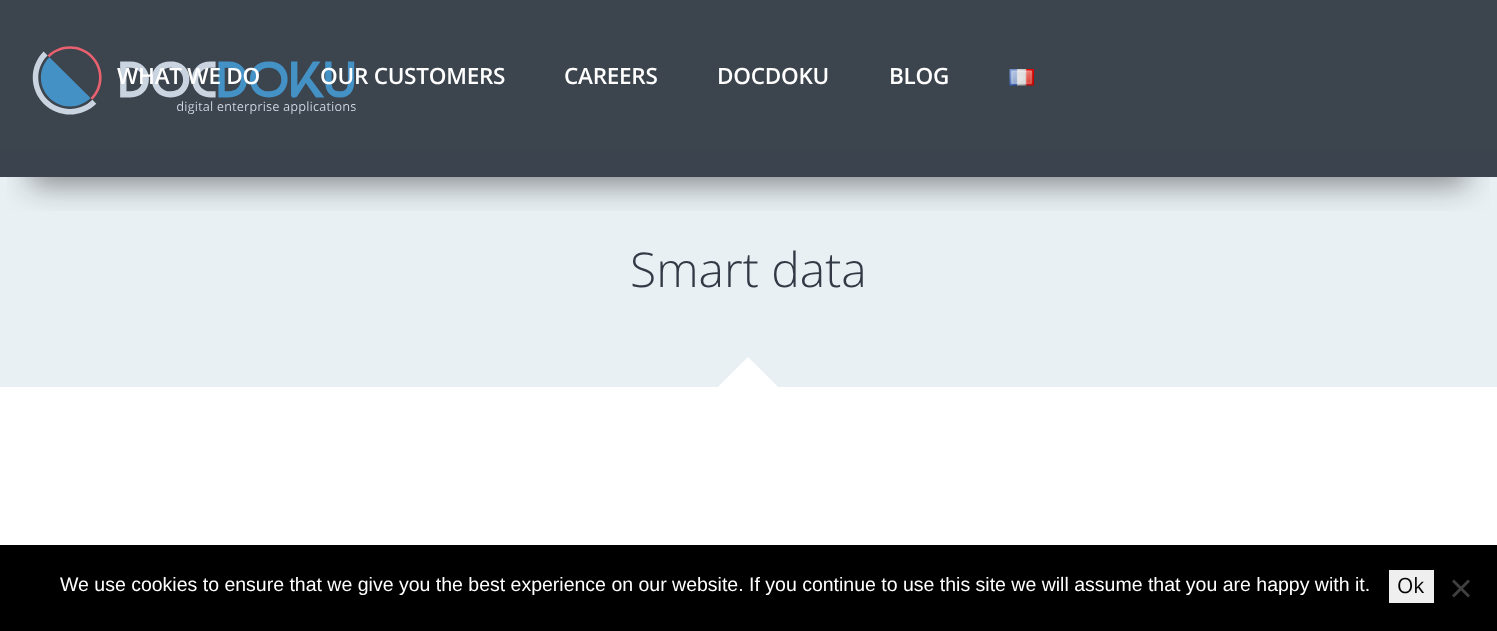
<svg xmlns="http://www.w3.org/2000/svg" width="1497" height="631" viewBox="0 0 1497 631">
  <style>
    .t1 { font: 600 22.5px Open Sans; letter-spacing: -0.25px; fill: #fff; }
    .t2 { font: 300 48px Open Sans; fill: #323a45; }
    .t3 { font: 19.5px Liberation Sans; fill: #fff; }
    .t4 { font: 21px Open Sans; fill: #000; }
  </style>
  <defs>
    <clipPath id="clip1"><rect x="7" y="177" width="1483" height="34"/></clipPath>
  </defs>
  <rect width="100%" height="100%" fill="#fff"/>
  <rect x="0" y="0" width="1497" height="150" fill="#3c444e"/>
  <rect x="0" y="177" width="1497" height="210" fill="#e9f0f4"/>
  <rect x="0" y="150" width="1497" height="27" fill="#3b434e"/>
  <g clip-path="url(#clip1)">
    <rect x="30" y="68" width="1437" height="117" fill="#0c0c0c73" filter="blur(15px)"/>
  </g>
  <image x="32" y="46" width="324" height="69" href="images/1.png"/>
  <text x="117" y="84" class="t1">WHAT WE DO</text>
  <text x="320" y="84" class="t1">OUR CUSTOMERS</text>
  <text x="564" y="84" class="t1">CAREERS</text>
  <text x="717" y="84" class="t1">DOCDOKU</text>
  <text x="889" y="84" class="t1">BLOG</text>
  <image x="1009" y="69" width="25" height="17" href="images/2.png"/>
  <text x="630" y="287" class="t2">Smart data</text>
  <path d="M778 387H718L748 357Z" fill="#fff"/>
  <rect x="0" y="545" width="1497" height="86" fill="#000"/>
  <text x="60" y="591" class="t3">We use cookies to ensure that we give you the best experience on our website. If you continue to use this site we will assume that you are happy with it.</text>
  <rect x="1389" y="570" width="45" height="33" fill="#efefef"/>
  <text x="1397" y="593" class="t4">Ok</text>
  <path d="M1468 579.5L1470 581.5L1454 597.5L1452 595.5Z" fill="#404040"/>
  <path d="M1452 581.5L1454 579.5L1470 595.5L1468 597.5Z" fill="#404040"/>
</svg>
